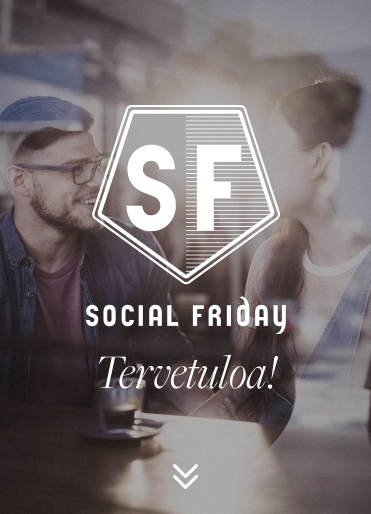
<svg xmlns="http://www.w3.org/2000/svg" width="371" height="514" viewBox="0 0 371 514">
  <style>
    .t1 { font: italic 300 50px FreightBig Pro; fill: #fff; }
  </style>
  <rect width="100%" height="100%" fill="#fff"/>
  <image x="0" y="0" width="371" height="514" href="images/1.png"/>
  <image x="86" y="105" width="200" height="229" href="images/2.png"/>
  <text x="94" y="388" class="t1">Tervetuloa!</text>
  <image x="173" y="464" width="25" height="25" href="images/3.png"/>
</svg>
